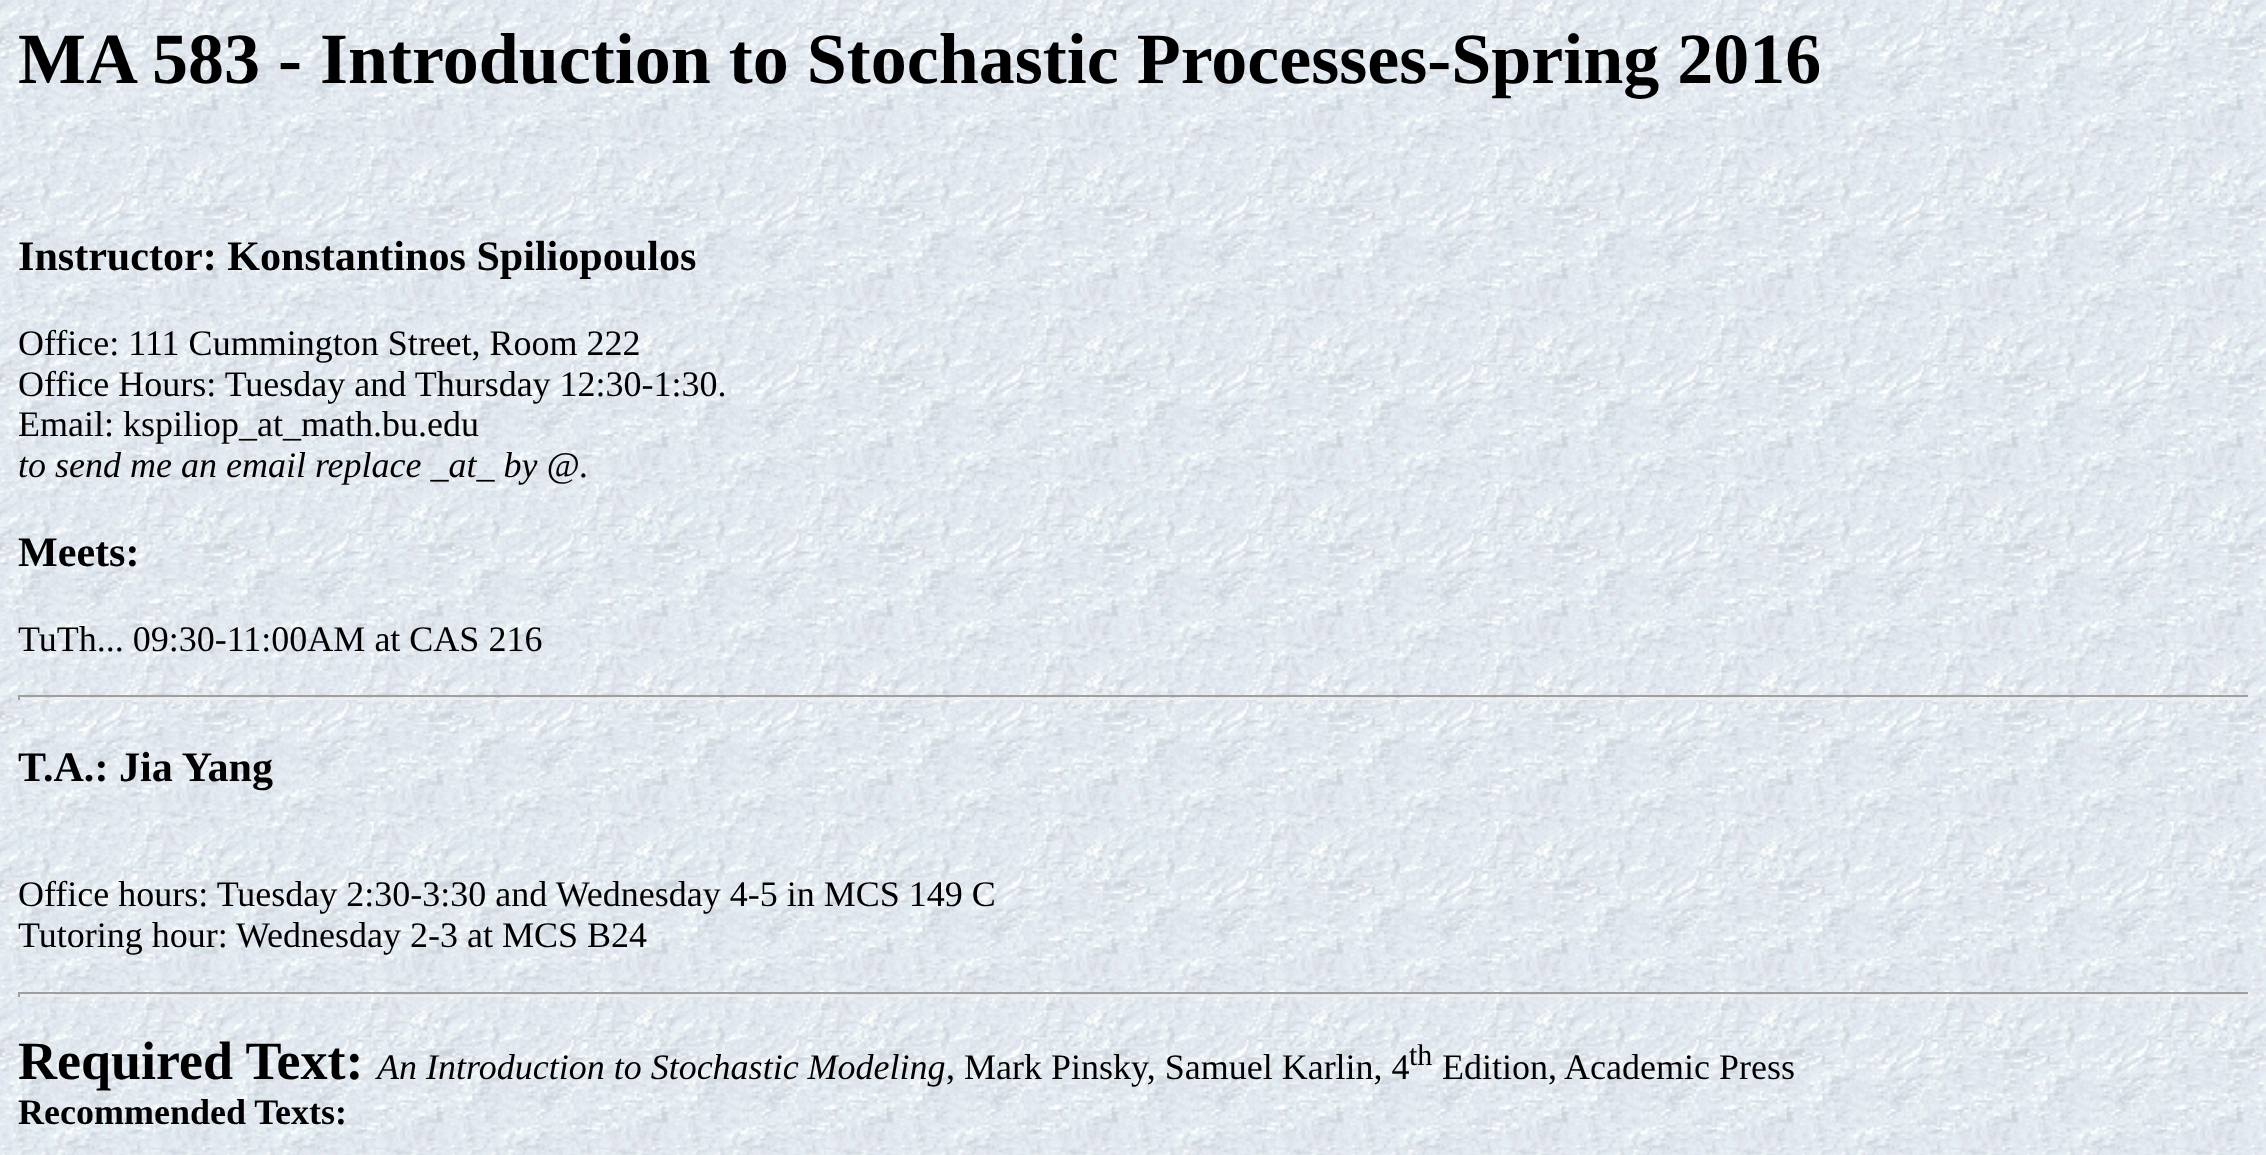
<svg xmlns="http://www.w3.org/2000/svg" width="2266" height="1155" viewBox="0 0 2266 1155">
  <style>
    .t1 { font: bold 72px Liberation Serif; fill: #000; }
    .t2 { font: bold 42.1px Liberation Serif; fill: #000; }
    .t3 { font: 36px Liberation Serif; fill: #000; }
    .t4 { font: italic 36px Liberation Serif; fill: #000; }
    .t5 { font: bold 54px Liberation Serif; fill: #000; }
    .t6 { font: 30px Liberation Serif; fill: #000; }
    .t7 { font: bold 36px Liberation Serif; fill: #000; }
  </style>
  <rect width="100%" height="100%" fill="#fff"/>
  <image x="0" y="0" width="2266" height="1155" href="images/1.png"/>
  <text x="18" y="83" class="t1">MA 583 - Introduction to Stochastic Processes-Spring 2016</text>
  <text x="18" y="270" class="t2">Instructor: Konstantinos Spiliopoulos</text>
  <text x="18" y="355" class="t3">Office: 111 Cummington Street, Room 222</text>
  <text x="18" y="396" class="t3">Office Hours: Tuesday and Thursday 12:30-1:30.</text>
  <text x="18" y="436" class="t3">Email: kspiliop_at_math.bu.edu</text>
  <text x="18" y="477" class="t4">to send me an email replace _at_ by @.</text>
  <text x="18" y="566" class="t2">Meets:</text>
  <text x="18" y="651" class="t3">TuTh... 09:30-11:00AM at CAS 216</text>
  <rect x="18" y="695" width="2232" height="2" fill="#9f9f9f"/>
  <rect x="2248" y="695" width="2" height="5" fill="#eee"/>
  <rect x="18" y="698" width="2232" height="2" fill="#eee"/>
  <rect x="18" y="695" width="2" height="5" fill="#9f9f9f"/>
  <text x="18" y="781" class="t2">T.A.: Jia Yang</text>
  <text x="18" y="906" class="t3">Office hours: Tuesday 2:30-3:30 and Wednesday 4-5 in MCS 149 C</text>
  <text x="18" y="947" class="t3">Tutoring hour:</text>
  <text x="236" y="947" class="t3">Wednesday 2-3 at MCS B24</text>
  <rect x="18" y="992" width="2232" height="2" fill="#9f9f9f"/>
  <rect x="2248" y="992" width="2" height="5" fill="#eee"/>
  <rect x="18" y="995" width="2232" height="2" fill="#eee"/>
  <rect x="18" y="992" width="2" height="5" fill="#9f9f9f"/>
  <text x="18" y="1079" class="t5">Required Text:</text>
  <text x="377" y="1079" class="t4">An Introduction to Stochastic Modeling</text>
  <text x="946" y="1079" class="t3">, Mark Pinsky, Samuel Karlin, 4</text>
  <text x="1409" y="1065" class="t6">th</text>
  <text x="1442" y="1079" class="t3">Edition, Academic Press</text>
  <text x="18" y="1124" class="t7">Recommended Texts:</text>
</svg>
